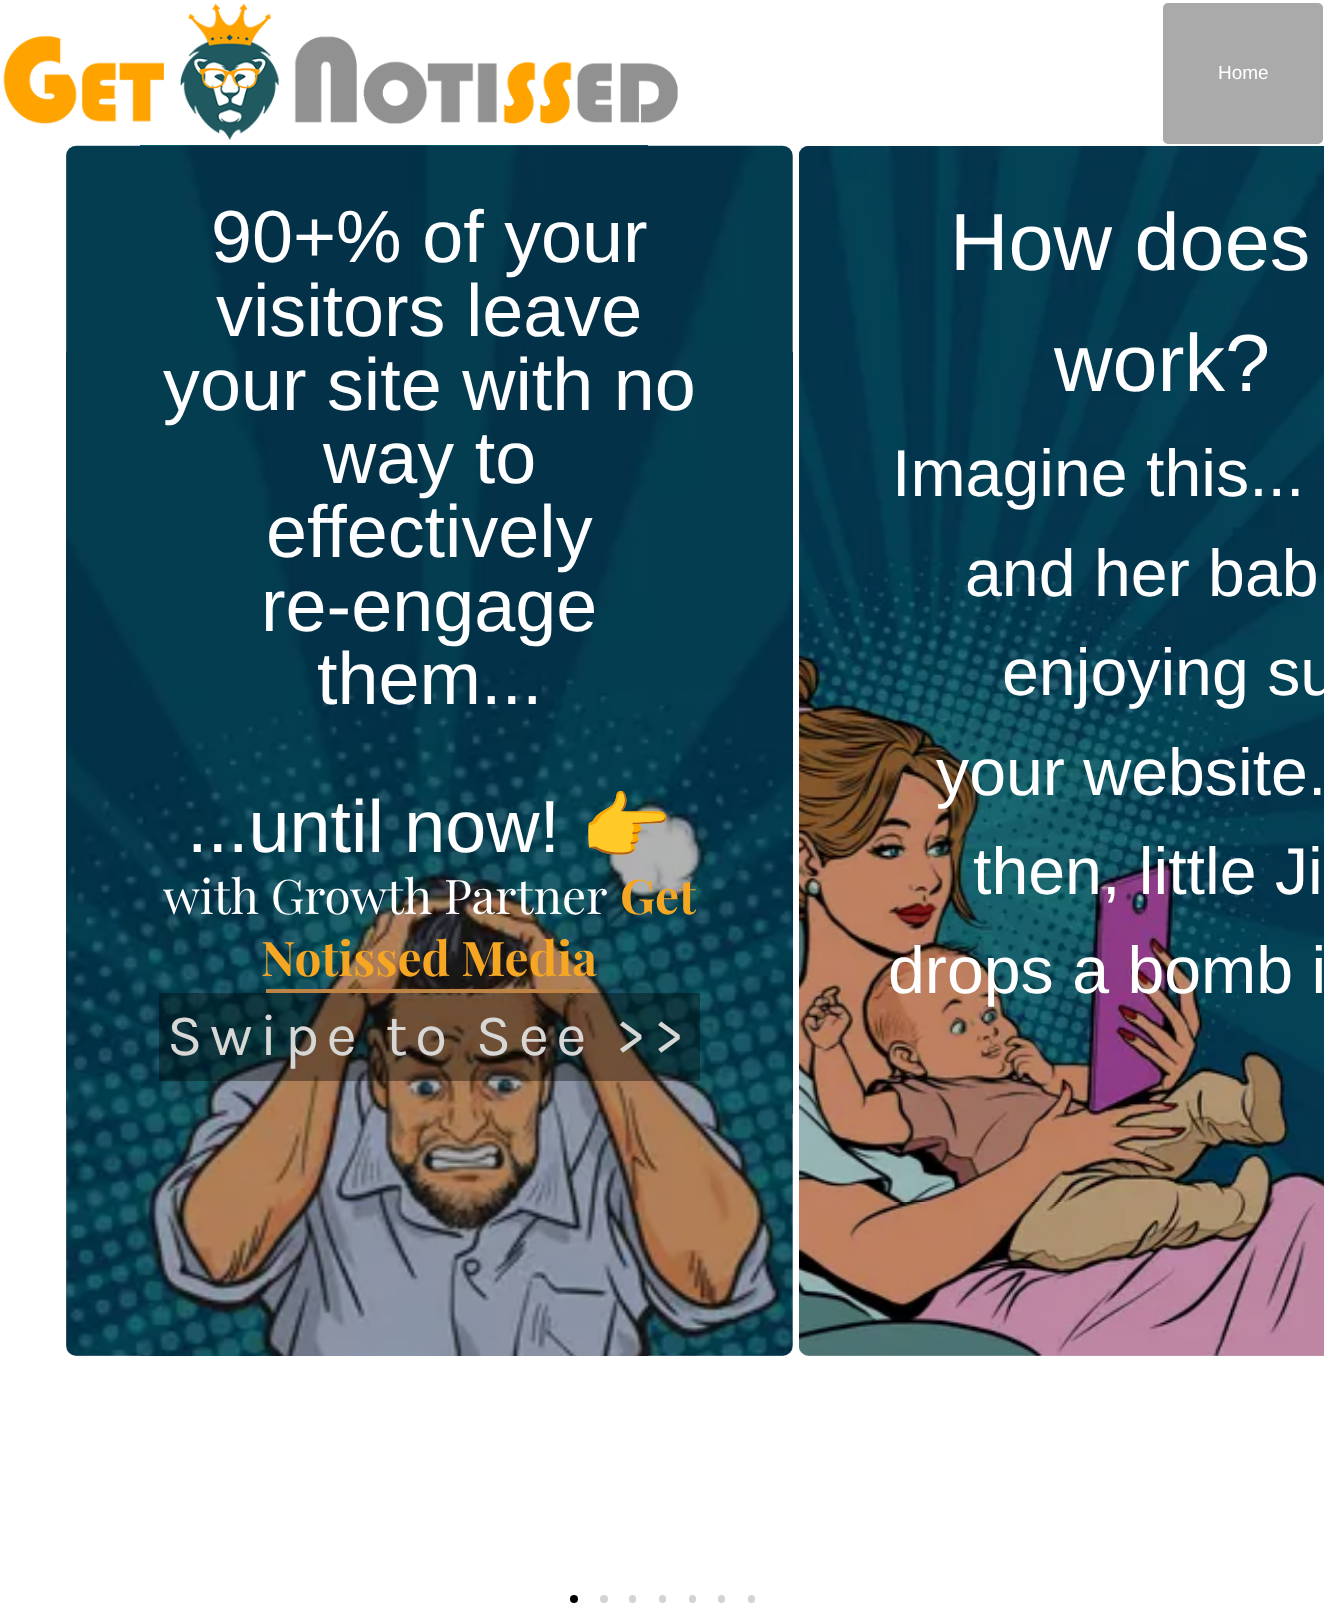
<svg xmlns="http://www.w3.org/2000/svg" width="1324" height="1613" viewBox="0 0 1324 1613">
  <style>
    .t1 { font: 19px Liberation Sans; fill: #fff; }
    .t2 { font: 73.75px Liberation Sans; fill: #fff; }
    .t3 { font: 73.75px Noto Color Emoji; fill: #fff; }
    .t4 { font: 47.75px Playfair Display; fill: #fff; }
    .t5 { font: bold 47.75px Playfair Display; fill: #f5a623; }
    .t6 { font: 58.75px Karla; letter-spacing: 7.4px; fill: #d7d8d6; }
    .t7 { font: 81px Liberation Sans; fill: #fff; }
    .t8 { font: 66.25px Liberation Sans; fill: #fff; }
  </style>
  <rect width="100%" height="100%" fill="#fff"/>
  <image x="3" y="3" width="675" height="137" href="images/1.png"/>
  <rect x="1163" y="3" width="160" height="141" rx="5" fill="#aaa"/>
  <text x="1218" y="79" class="t1">Home</text>
  <rect x="66" y="146" width="727" height="1210" rx="10" fill="#f5f5f5"/>
  <image x="66" y="145" width="727" height="1211" href="images/2.png"/>
  <rect x="66" y="146" width="727" height="1210" rx="10" fill="#0000004d"/>
  <text x="211" y="262" class="t2">90+% of your</text>
  <text x="216" y="336" class="t2">visitors leave</text>
  <text x="163" y="410" class="t2">your site with no</text>
  <text x="323" y="483" class="t2">way to</text>
  <text x="266" y="557" class="t2">effectively</text>
  <text x="261" y="631" class="t2">re-engage</text>
  <text x="317" y="704" class="t2">them...</text>
  <text x="187" y="852" class="t2">...until now!</text>
  <text x="580" y="852" class="t3">👉</text>
  <text x="163" y="914" class="t4">with Growth Partner</text>
  <text x="620" y="914" class="t5">Get</text>
  <text x="261" y="976" class="t5">Notissed Media</text>
  <rect x="266" y="989" width="327" height="4" fill="#bd8445"/>
  <rect x="159" y="993" width="541" height="88" fill="#0000005e"/>
  <text x="167" y="1055" class="t6">Swipe to See &gt;&gt;</text>
  <image x="799" y="146" width="525" height="1210" href="images/3.png"/>
  <path d="M809 146H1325V1356H809C803.5 1356 799 1351.5 799 1346V156C799 150.5 803.5 146 809 146Z" fill="#00000040"/>
  <text x="950" y="270" class="t7">How does</text>
  <text x="1054" y="391" class="t7">work?</text>
  <text x="892" y="496" class="t8">Imagine this...</text>
  <text x="965" y="596" class="t8">and her bab</text>
  <text x="1002" y="695" class="t8">enjoying su</text>
  <text x="936" y="795" class="t8">your website.</text>
  <text x="973" y="894" class="t8">then, little Ji</text>
  <text x="888" y="993" class="t8">drops a bomb i</text>
  <circle cx="574" cy="1599" r="4" fill="#000"/>
  <circle cx="604" cy="1599" r="4" fill="#d3d3d3"/>
  <rect x="629" y="1595" width="7" height="8" rx="3.5" fill="#d3d3d3"/>
  <rect x="659" y="1595" width="7" height="8" rx="3.5" fill="#d3d3d3"/>
  <rect x="689" y="1595" width="7" height="8" rx="3.5" fill="#d3d3d3"/>
  <rect x="718" y="1595" width="7" height="8" rx="3.5" fill="#d3d3d3"/>
  <rect x="748" y="1595" width="7" height="8" rx="3.5" fill="#d3d3d3"/>
</svg>
